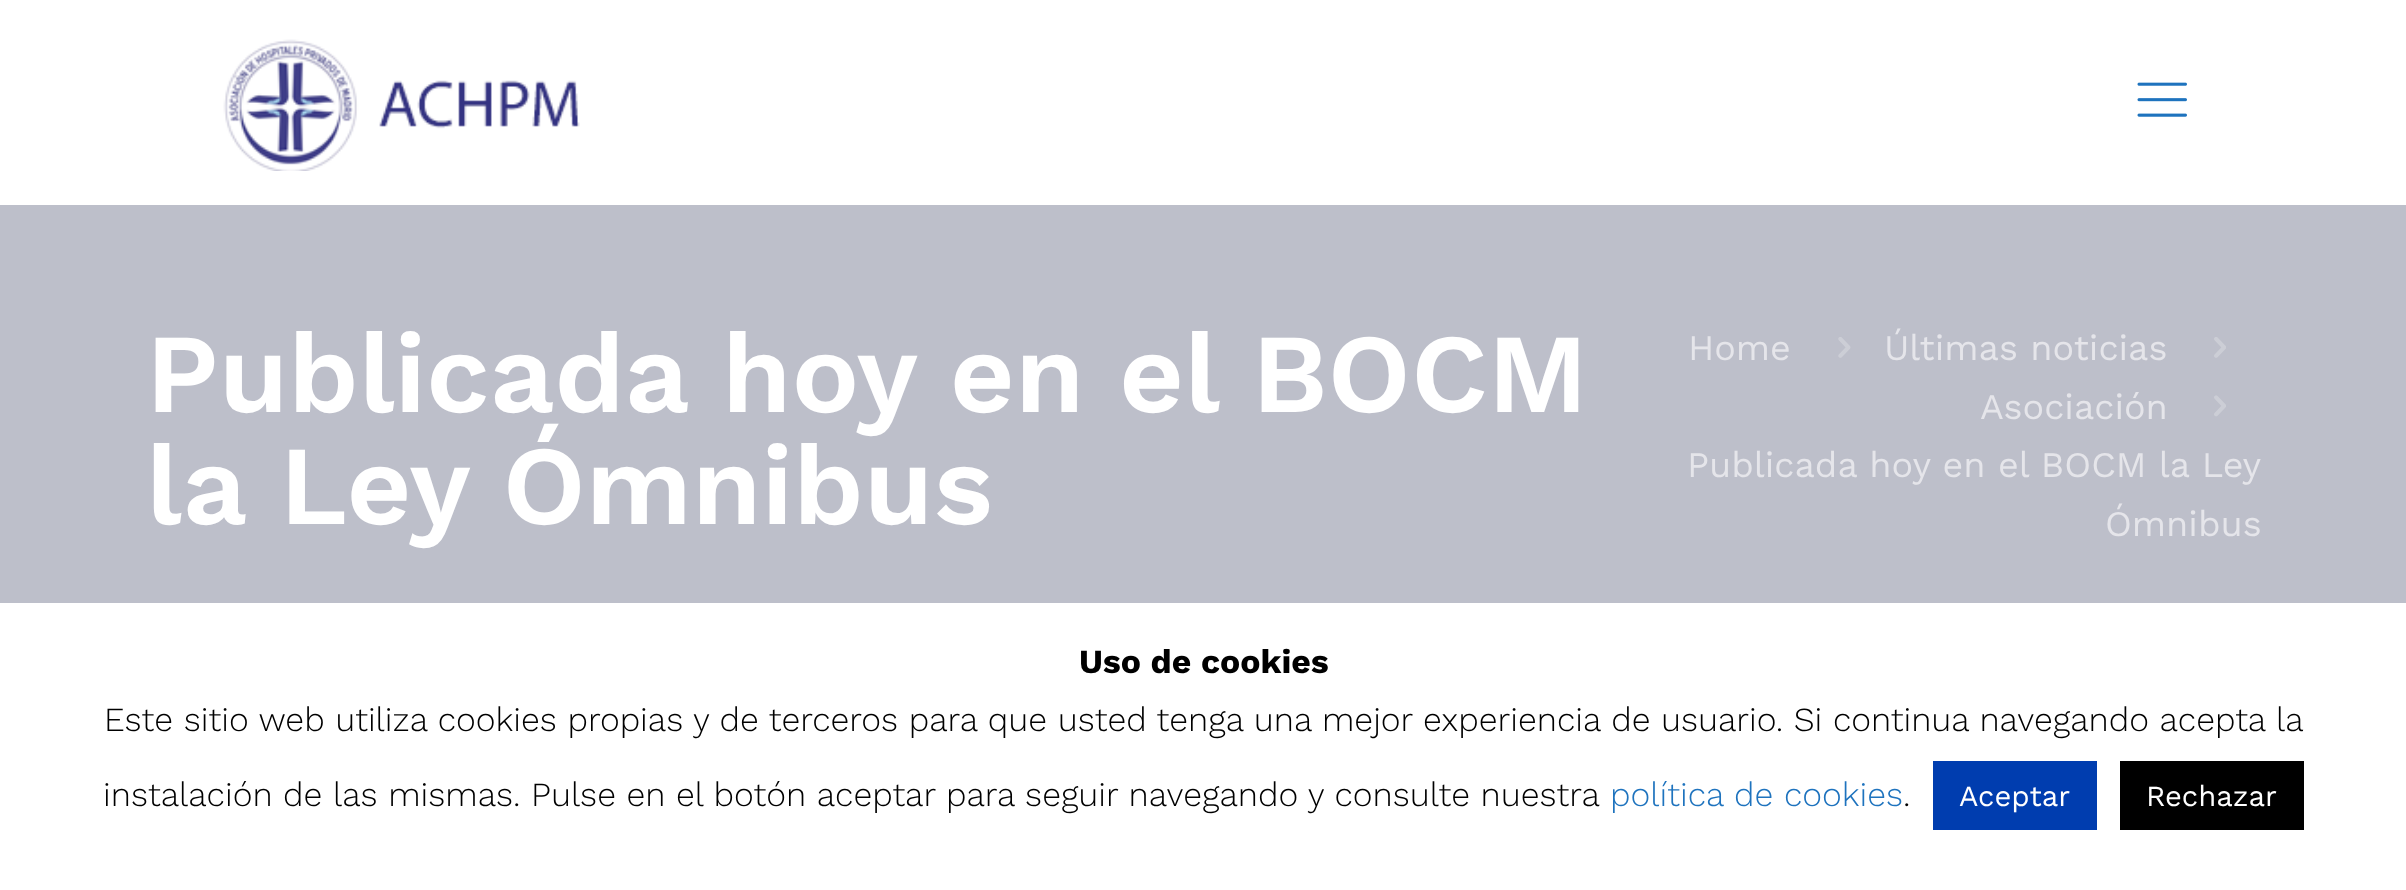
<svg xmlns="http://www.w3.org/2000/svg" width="2406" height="890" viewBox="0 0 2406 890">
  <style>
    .t1 { font: 600 112.5px Work Sans; fill: #fff; }
    .t2 { font: 36px Work Sans; fill: #e5e5ea; }
    .t3 { font: bold 33.75px Work Sans; fill: #000; }
    .t4 { font: 300 33.75px Work Sans; fill: #000; }
    .t5 { font: 300 33.75px Work Sans; fill: #1e73be; }
    .t6 { font: 29.25px Work Sans; fill: #fff; }
  </style>
  <rect width="100%" height="100%" fill="#bdbfca"/>
  <rect x="0" y="0" width="2406" height="205" fill="#fff"/>
  <image x="223" y="39" width="357" height="132" href="images/1.png"/>
  <image x="2137" y="82" width="50" height="35" href="images/2.png"/>
  <text x="146" y="412" class="t1">Publicada hoy en el BOCM</text>
  <text x="146" y="524" class="t1">la Ley Ómnibus</text>
  <text x="1688" y="360" class="t2">Home</text>
  <image x="1838" y="337" width="13" height="21" href="images/3.png"/>
  <text x="1884" y="360" class="t2">Últimas noticias</text>
  <image x="2214" y="337" width="12" height="21" href="images/4.png"/>
  <text x="1980" y="419" class="t2">Asociación</text>
  <image x="2214" y="395" width="12" height="22" href="images/5.png"/>
  <text x="1687" y="477" class="t2">Publicada hoy en el BOCM la Ley</text>
  <text x="2105" y="536" class="t2">Ómnibus</text>
  <rect x="0" y="603" width="2406" height="287" fill="#fff"/>
  <text x="1079" y="673" class="t3">Uso de cookies</text>
  <text x="104" y="731" class="t4">Este sitio web utiliza cookies propias y de terceros para que usted tenga una mejor experiencia de usuario. Si continua navegando acepta la</text>
  <text x="103" y="806" class="t4">instalación de las mismas. Pulse en el botón aceptar para seguir navegando y consulte nuestra</text>
  <text x="1610" y="806" class="t5">política de cookies</text>
  <text x="1903" y="806" class="t4">.</text>
  <rect x="1933" y="761" width="164" height="69" fill="#003daf"/>
  <text x="1959" y="806" class="t6">Aceptar</text>
  <rect x="2120" y="761" width="184" height="69" fill="#000"/>
  <text x="2146" y="806" class="t6">Rechazar</text>
</svg>
